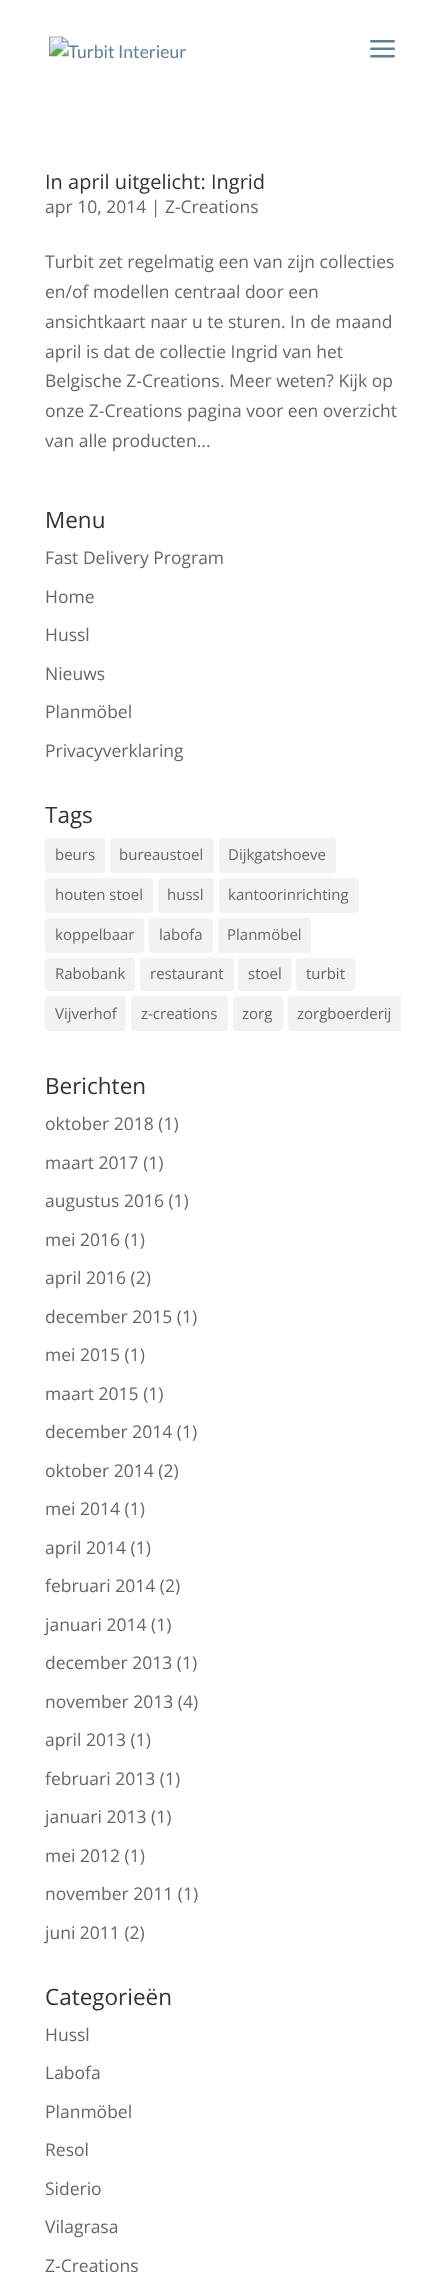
<svg xmlns="http://www.w3.org/2000/svg" width="447" height="2272" viewBox="0 0 447 2272">
  <style>
    .t1 { font: 20px Open Sans; fill: #333; }
    .t2 { font: 17.5px Open Sans; fill: #666; }
    .t3 { font: 22.5px Open Sans; fill: #333; }
    .t4 { font: 15px Open Sans; fill: #666; }
  </style>
  <rect width="100%" height="100%" fill="#fff"/>
  <image x="49" y="36" width="137" height="23" href="images/1.png"/>
  <image x="370" y="40" width="25" height="18" href="images/2.png"/>
  <text x="45" y="189" class="t1">In april uitgelicht: Ingrid</text>
  <text x="45" y="213" class="t2">apr 10, 2014 | Z-Creations</text>
  <text x="45" y="268" class="t2">Turbit zet regelmatig een van zijn collecties</text>
  <text x="45" y="298" class="t2">en/of modellen centraal door een</text>
  <text x="45" y="328" class="t2">ansichtkaart naar u te sturen. In de maand</text>
  <text x="45" y="358" class="t2">april is dat de collectie Ingrid van het</text>
  <text x="45" y="387" class="t2">Belgische Z-Creations. Meer weten? Kijk op</text>
  <text x="45" y="417" class="t2">onze Z-Creations pagina voor een overzicht</text>
  <text x="45" y="447" class="t2">van alle producten...</text>
  <text x="45" y="528" class="t3">Menu</text>
  <text x="45" y="564" class="t2">Fast Delivery Program</text>
  <text x="45" y="603" class="t2">Home</text>
  <text x="45" y="641" class="t2">Hussl</text>
  <text x="45" y="680" class="t2">Nieuws</text>
  <text x="45" y="718" class="t2">Planmöbel</text>
  <text x="45" y="757" class="t2">Privacyverklaring</text>
  <text x="45" y="823" class="t3">Tags</text>
  <rect x="45" y="838" width="60" height="35" rx="4" fill="#f2f2f2"/>
  <text x="55" y="860" class="t4">beurs</text>
  <rect x="110" y="838" width="104" height="35" rx="4" fill="#f2f2f2"/>
  <text x="119" y="860" class="t4">bureaustoel</text>
  <rect x="219" y="838" width="117" height="35" rx="4" fill="#f2f2f2"/>
  <text x="228" y="860" class="t4">Dijkgatshoeve</text>
  <rect x="45" y="878" width="108" height="35" rx="4" fill="#f2f2f2"/>
  <text x="55" y="900" class="t4">houten stoel</text>
  <rect x="158" y="878" width="56" height="35" rx="4" fill="#f2f2f2"/>
  <text x="167" y="900" class="t4">hussl</text>
  <rect x="219" y="878" width="140" height="35" rx="4" fill="#f2f2f2"/>
  <text x="228" y="900" class="t4">kantoorinrichting</text>
  <rect x="45" y="918" width="99" height="35" rx="4" fill="#f2f2f2"/>
  <text x="55" y="940" class="t4">koppelbaar</text>
  <rect x="149" y="918" width="64" height="35" rx="4" fill="#f2f2f2"/>
  <text x="159" y="940" class="t4">labofa</text>
  <rect x="218" y="918" width="93" height="35" rx="4" fill="#f2f2f2"/>
  <text x="227" y="940" class="t4">Planmöbel</text>
  <rect x="45" y="958" width="90" height="33" rx="4" fill="#f2f2f2"/>
  <text x="55" y="979" class="t4">Rabobank</text>
  <rect x="140" y="958" width="94" height="33" rx="4" fill="#f2f2f2"/>
  <text x="150" y="979" class="t4">restaurant</text>
  <rect x="238" y="958" width="53" height="33" rx="4" fill="#f2f2f2"/>
  <text x="248" y="979" class="t4">stoel</text>
  <rect x="296" y="958" width="59" height="33" rx="4" fill="#f2f2f2"/>
  <text x="306" y="979" class="t4">turbit</text>
  <rect x="45" y="996" width="81" height="35" rx="4" fill="#f2f2f2"/>
  <text x="55" y="1019" class="t4">Vijverhof</text>
  <rect x="131" y="996" width="97" height="35" rx="4" fill="#f2f2f2"/>
  <text x="141" y="1019" class="t4">z-creations</text>
  <rect x="233" y="996" width="50" height="35" rx="4" fill="#f2f2f2"/>
  <text x="242" y="1019" class="t4">zorg</text>
  <rect x="288" y="996" width="113" height="35" rx="4" fill="#f2f2f2"/>
  <text x="297" y="1019" class="t4">zorgboerderij</text>
  <text x="45" y="1094" class="t3">Berichten</text>
  <text x="45" y="1130" class="t2">oktober 2018 (1)</text>
  <text x="45" y="1169" class="t2">maart 2017 (1)</text>
  <text x="45" y="1207" class="t2">augustus 2016 (1)</text>
  <text x="45" y="1246" class="t2">mei 2016 (1)</text>
  <text x="45" y="1284" class="t2">april 2016 (2)</text>
  <text x="45" y="1323" class="t2">december 2015 (1)</text>
  <text x="45" y="1361" class="t2">mei 2015 (1)</text>
  <text x="45" y="1400" class="t2">maart 2015 (1)</text>
  <text x="45" y="1438" class="t2">december 2014 (1)</text>
  <text x="45" y="1477" class="t2">oktober 2014 (2)</text>
  <text x="45" y="1515" class="t2">mei 2014 (1)</text>
  <text x="45" y="1554" class="t2">april 2014 (1)</text>
  <text x="45" y="1592" class="t2">februari 2014 (2)</text>
  <text x="45" y="1631" class="t2">januari 2014 (1)</text>
  <text x="45" y="1669" class="t2">december 2013 (1)</text>
  <text x="45" y="1708" class="t2">november 2013 (4)</text>
  <text x="45" y="1746" class="t2">april 2013 (1)</text>
  <text x="45" y="1785" class="t2">februari 2013 (1)</text>
  <text x="45" y="1823" class="t2">januari 2013 (1)</text>
  <text x="45" y="1862" class="t2">mei 2012 (1)</text>
  <text x="45" y="1900" class="t2">november 2011 (1)</text>
  <text x="45" y="1939" class="t2">juni 2011 (2)</text>
  <text x="45" y="2005" class="t3">Categorieën</text>
  <text x="45" y="2041" class="t2">Hussl</text>
  <text x="45" y="2079" class="t2">Labofa</text>
  <text x="45" y="2118" class="t2">Planmöbel</text>
  <text x="45" y="2156" class="t2">Resol</text>
  <text x="45" y="2195" class="t2">Siderio</text>
  <text x="45" y="2233" class="t2">Vilagrasa</text>
  <text x="45" y="2272" class="t2">Z-Creations</text>
</svg>
